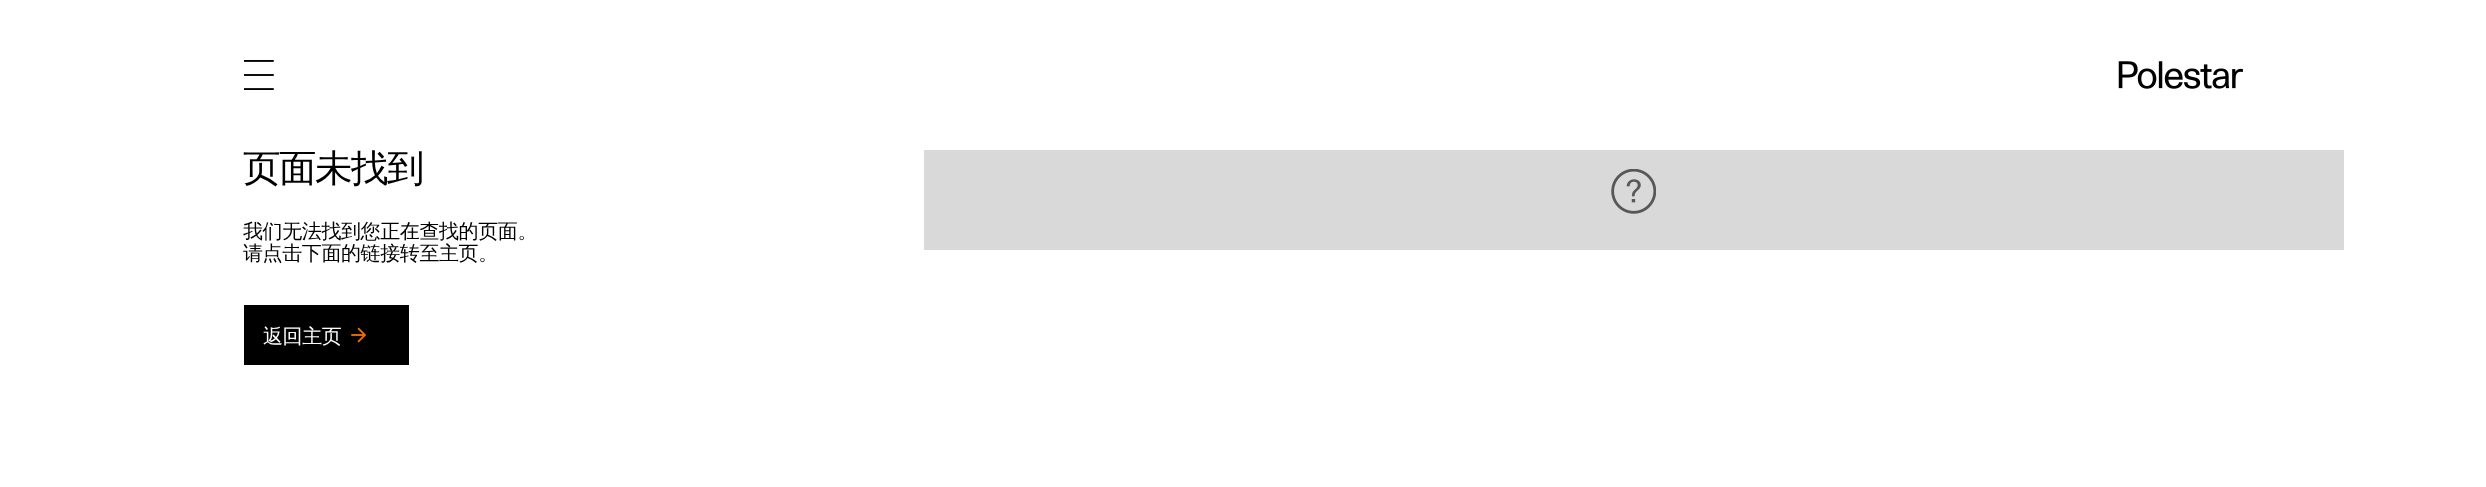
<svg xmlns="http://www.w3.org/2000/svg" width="2486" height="487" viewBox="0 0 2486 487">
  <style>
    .t1 { font: 500 37.5px WenQuanYi Zen Hei; letter-spacing: -1.5px; fill: #000; }
    .t2 { font: 500 20px WenQuanYi Zen Hei; letter-spacing: -0.4px; fill: #000; }
    .t3 { font: 500 20px WenQuanYi Zen Hei; letter-spacing: -0.4px; fill: #fff; }
  </style>
  <rect width="100%" height="100%" fill="#fff"/>
  <image x="244" y="60" width="30" height="30" href="images/1.png"/>
  <image x="2118" y="61" width="125" height="28" href="images/2.png"/>
  <text x="243" y="181" class="t1">页面未找到</text>
  <text x="243" y="238" class="t2">我们无法找到您正在查找的页面。</text>
  <text x="243" y="260" class="t2">请点击下面的链接转至主页。</text>
  <rect x="244" y="305" width="165" height="60" fill="#000"/>
  <text x="263" y="343" class="t3">返回主页</text>
  <image x="351" y="327" width="16" height="16" href="images/3.png"/>
  <rect x="924" y="150" width="1420" height="100" fill="#d9d9d9"/>
  <image x="1611" y="169" width="45" height="45" href="images/4.png"/>
</svg>
